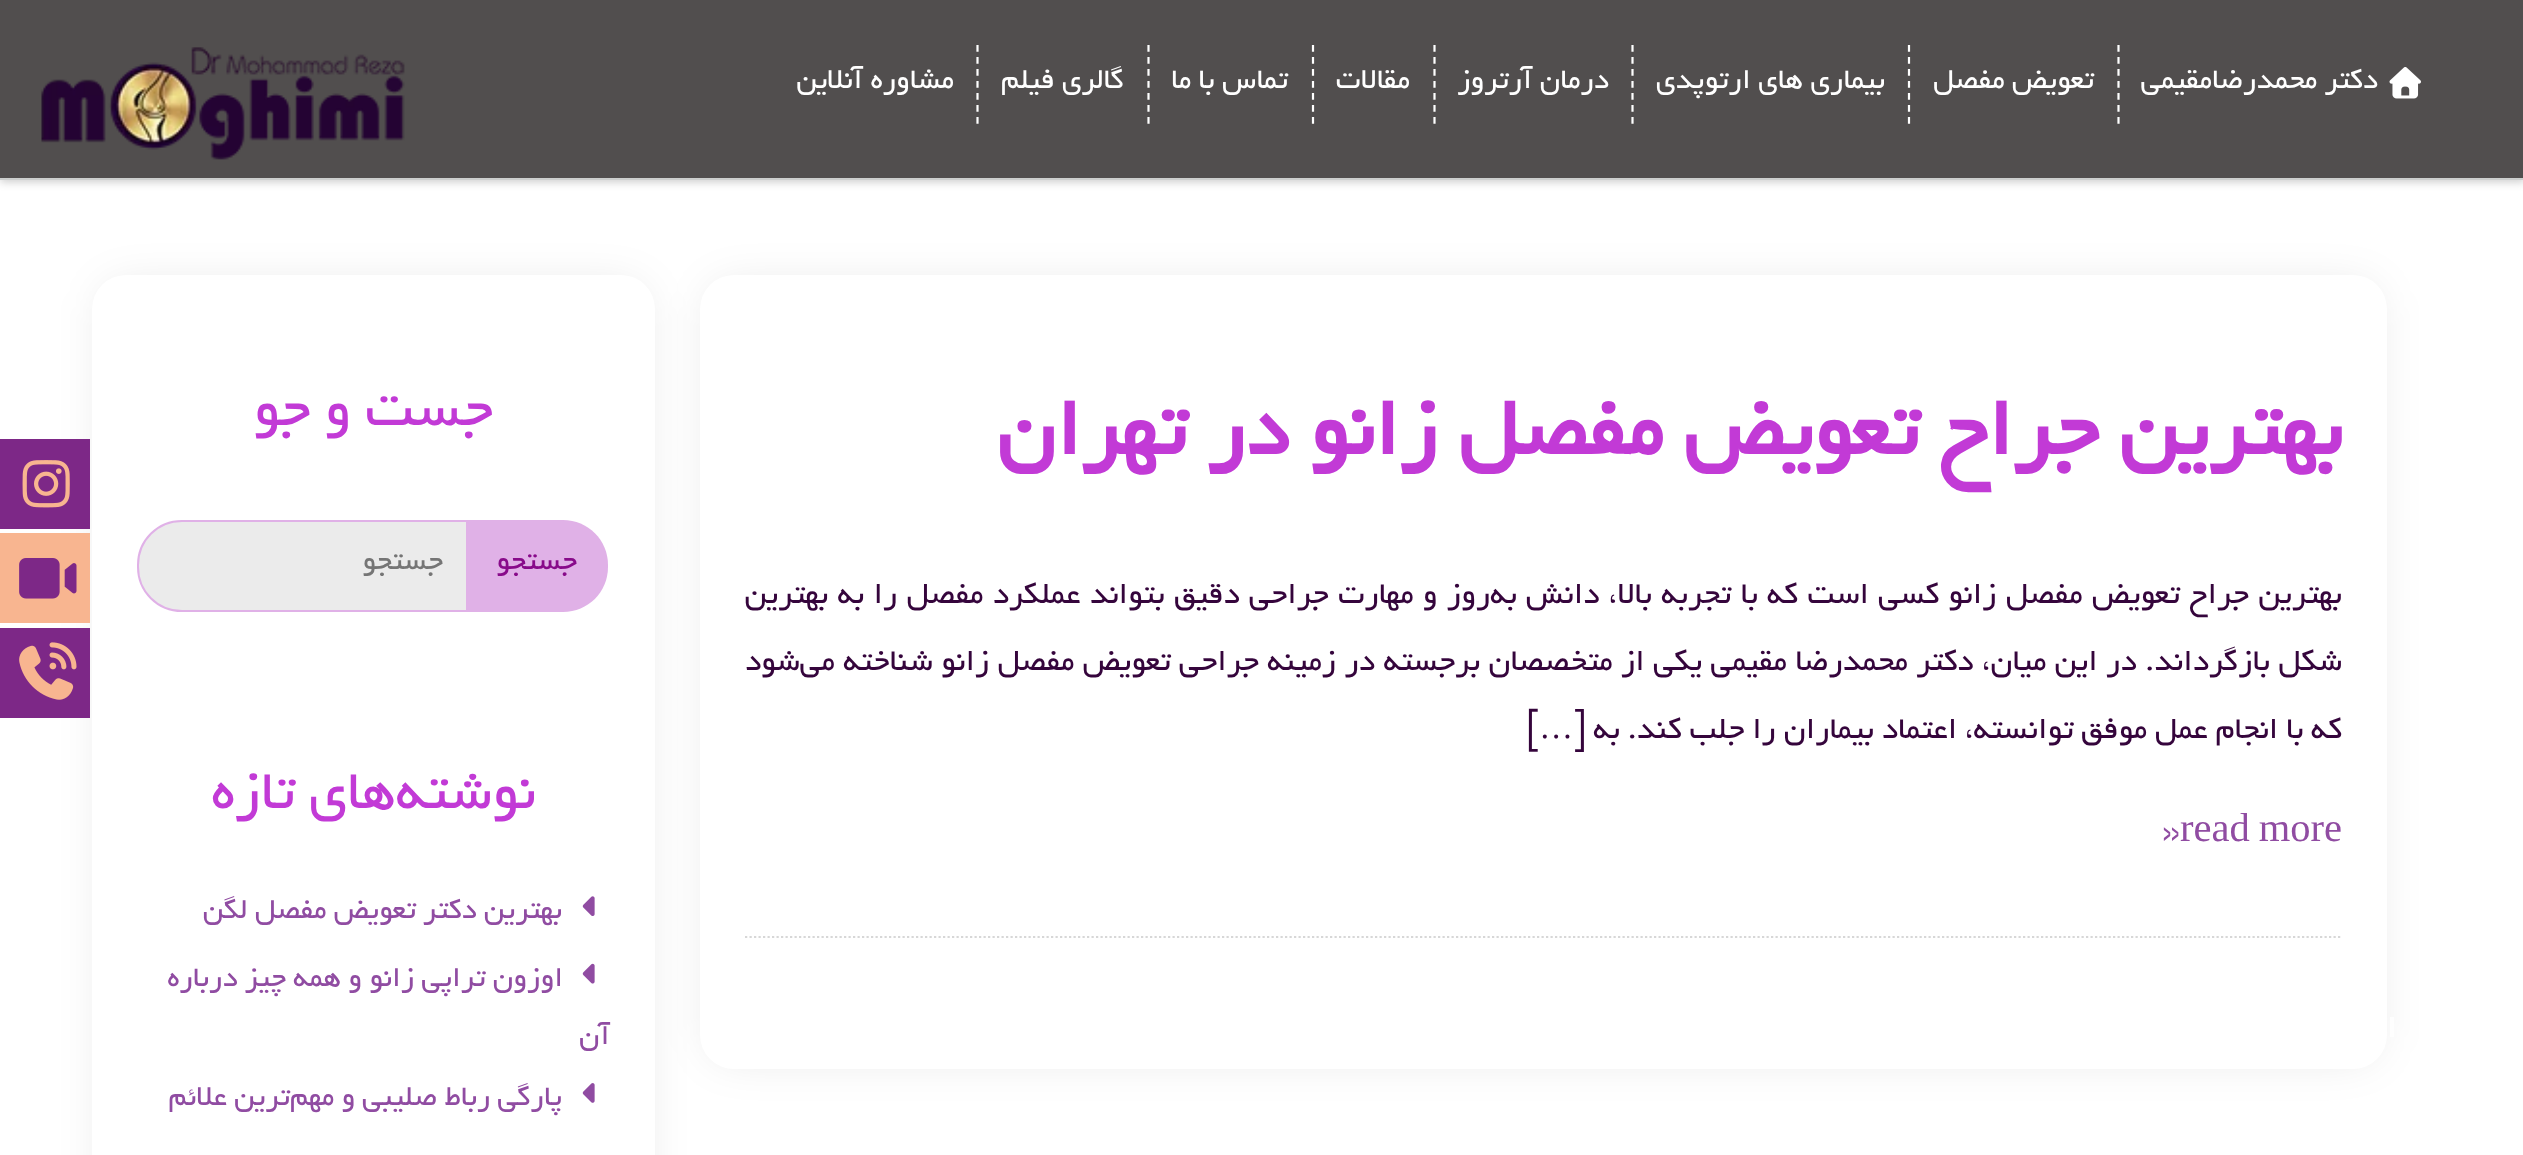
<svg xmlns="http://www.w3.org/2000/svg" width="2523" height="1155" viewBox="0 0 2523 1155">
  <style>
    .t1 { font: 31.5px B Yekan; direction: rtl; fill: #fff; }
    .t2 { font: bold 90px B Yekan; direction: rtl; fill: #c23ad6; }
    .t3 { font: 33.75px B Yekan; direction: rtl; fill: #35053c; }
    .t4 { font: 33.75px Liberation Serif; direction: rtl; fill: #35053c; }
    .t5 { font: 40.5px Liberation Serif; fill: #904ca2; }
    .t6 { font: 40.5px B Yekan; fill: #904ca2; }
    .t7 { font: 61px B Yekan; direction: rtl; fill: #c23ad6; }
    .t8 { font: 31.5px B Yekan; direction: rtl; fill: #880a8a; }
    .t9 { font: 31.5px B Yekan; direction: rtl; fill: #757575; }
    .t10 { font: 31.5px B Yekan; direction: rtl; fill: #904ca2; }
  </style>
  <rect width="100%" height="100%" fill="#fff"/>
  <rect x="0" y="2" width="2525" height="180" fill="#00000033" filter="blur(4.5px)"/>
  <rect x="0" y="0" width="2523" height="178" fill="#514e4e"/>
  <rect x="0" y="178" width="2523" height="2" fill="#cccecd"/>
  <path d="M2118.5 45V124" fill="none" stroke="#fff" stroke-width="2.2" stroke-dasharray="6.75 5.24"/>
  <image x="2389" y="67" width="32" height="32" href="images/1.png"/>
  <text x="2378" y="88" class="t1">دکتر محمدرضامقیمی</text>
  <path d="M1909 45V124" fill="none" stroke="#fff" stroke-width="2.2" stroke-dasharray="6.75 5.24"/>
  <text x="2094" y="88" class="t1">تعویض مفصل</text>
  <path d="M1632.5 45V124" fill="none" stroke="#fff" stroke-width="2.2" stroke-dasharray="6.75 5.24"/>
  <text x="1885" y="88" class="t1">بیماری های ارتوپدی</text>
  <path d="M1434.5 45V124" fill="none" stroke="#fff" stroke-width="2.2" stroke-dasharray="6.75 5.24"/>
  <text x="1609" y="88" class="t1">درمان آرتروز</text>
  <path d="M1313 45V124" fill="none" stroke="#fff" stroke-width="2.2" stroke-dasharray="6.75 5.24"/>
  <text x="1410" y="88" class="t1">مقالات</text>
  <path d="M1148.5 45V124" fill="none" stroke="#fff" stroke-width="2.2" stroke-dasharray="6.75 5.24"/>
  <text x="1288" y="88" class="t1">تماس با ما</text>
  <path d="M977.5 45V124" fill="none" stroke="#fff" stroke-width="2.2" stroke-dasharray="6.75 5.24"/>
  <text x="1124" y="88" class="t1">گالری فیلم</text>
  <text x="954" y="88" class="t1">مشاوره آنلاین</text>
  <image x="41" y="47" width="364" height="113" href="images/2.png"/>
  <rect x="711" y="286" width="1665" height="772" rx="23" fill="#0000001a" filter="blur(22.5px)"/>
  <rect x="700" y="275" width="1687" height="794" rx="34" fill="#fff"/>
  <text x="2342" y="454" class="t2">بهترین جراح تعویض مفصل زانو در تهران</text>
  <text x="2342" y="603" word-spacing="1.55" class="t3">بهترین جراح تعویض مفصل زانو کسی است که با تجربه بالا، دانش به‌روز و مهارت جراحی دقیق بتواند عملکرد مفصل را به بهترین</text>
  <text x="2342" y="670" word-spacing="0.6" class="t3">شکل بازگرداند. در این میان، دکتر محمدرضا مقیمی یکی از متخصصان برجسته در زمینه جراحی تعویض مفصل زانو شناخته می‌شود</text>
  <text x="2342" y="738" class="t3">که با انجام عمل موفق توانسته، اعتماد بیماران را جلب کند. به [</text>
  <text x="1573" y="738" class="t4">…</text>
  <text x="1539" y="738" class="t3">]</text>
  <text x="2180" y="841" word-spacing="-1" class="t5">read more</text>
  <text x="2162" y="841" class="t6">»</text>
  <path d="M745 937H2342" fill="none" stroke="#d7d7d7" stroke-width="2.2" stroke-dasharray="2.25 2.25"/>
  <rect x="104" y="286" width="540" height="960" rx="23" fill="#0000001a" filter="blur(22.5px)"/>
  <rect x="92" y="275" width="563" height="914" rx="34" fill="#fff"/>
  <text x="493" y="425" class="t7">جست</text>
  <text x="351" y="425" class="t7">و جو</text>
  <path d="M182 521H467V611H182C157.5 611 138 591.5 138 567V565C138 540.5 157.5 521 182 521Z" fill="#ebebeb" stroke="#e0b1e7" stroke-width="2"/>
  <path d="M466 520H563C588 520 608 540 608 565V567C608 592 588 612 563 612H466Z" fill="#e0b1e7"/>
  <text x="577" y="569" class="t8">جستجو</text>
  <text x="443" y="569" class="t9">جستجو</text>
  <text x="536" y="808" class="t7">نوشته‌های</text>
  <text x="295" y="808" class="t7">تازه</text>
  <image x="582" y="896" width="13" height="20" href="images/3.png"/>
  <text x="562" y="918" class="t10">بهترین دکتر تعویض مفصل لگن</text>
  <image x="582" y="963" width="13" height="21" href="images/4.png"/>
  <text x="563" y="986" class="t10">اوزون تراپی زانو و همه چیز درباره</text>
  <text x="610" y="1044" class="t10">آن</text>
  <image x="582" y="1083" width="13" height="20" href="images/5.png"/>
  <text x="562" y="1105" class="t10">پارگی رباط صلیبی و مهم‌ترین علائم</text>
  <rect x="0" y="439" width="90" height="90" fill="#7d2887"/>
  <image x="22" y="460" width="48" height="48" href="images/6.png"/>
  <rect x="0" y="533" width="90" height="90" fill="#f8b590"/>
  <image x="19" y="558" width="58" height="41" href="images/7.png"/>
  <rect x="0" y="628" width="90" height="90" fill="#7d2887"/>
  <image x="19" y="642" width="58" height="58" href="images/8.png"/>
  <rect x="2390" y="1017" width="4" height="20" fill="#fefefe"/>
</svg>
